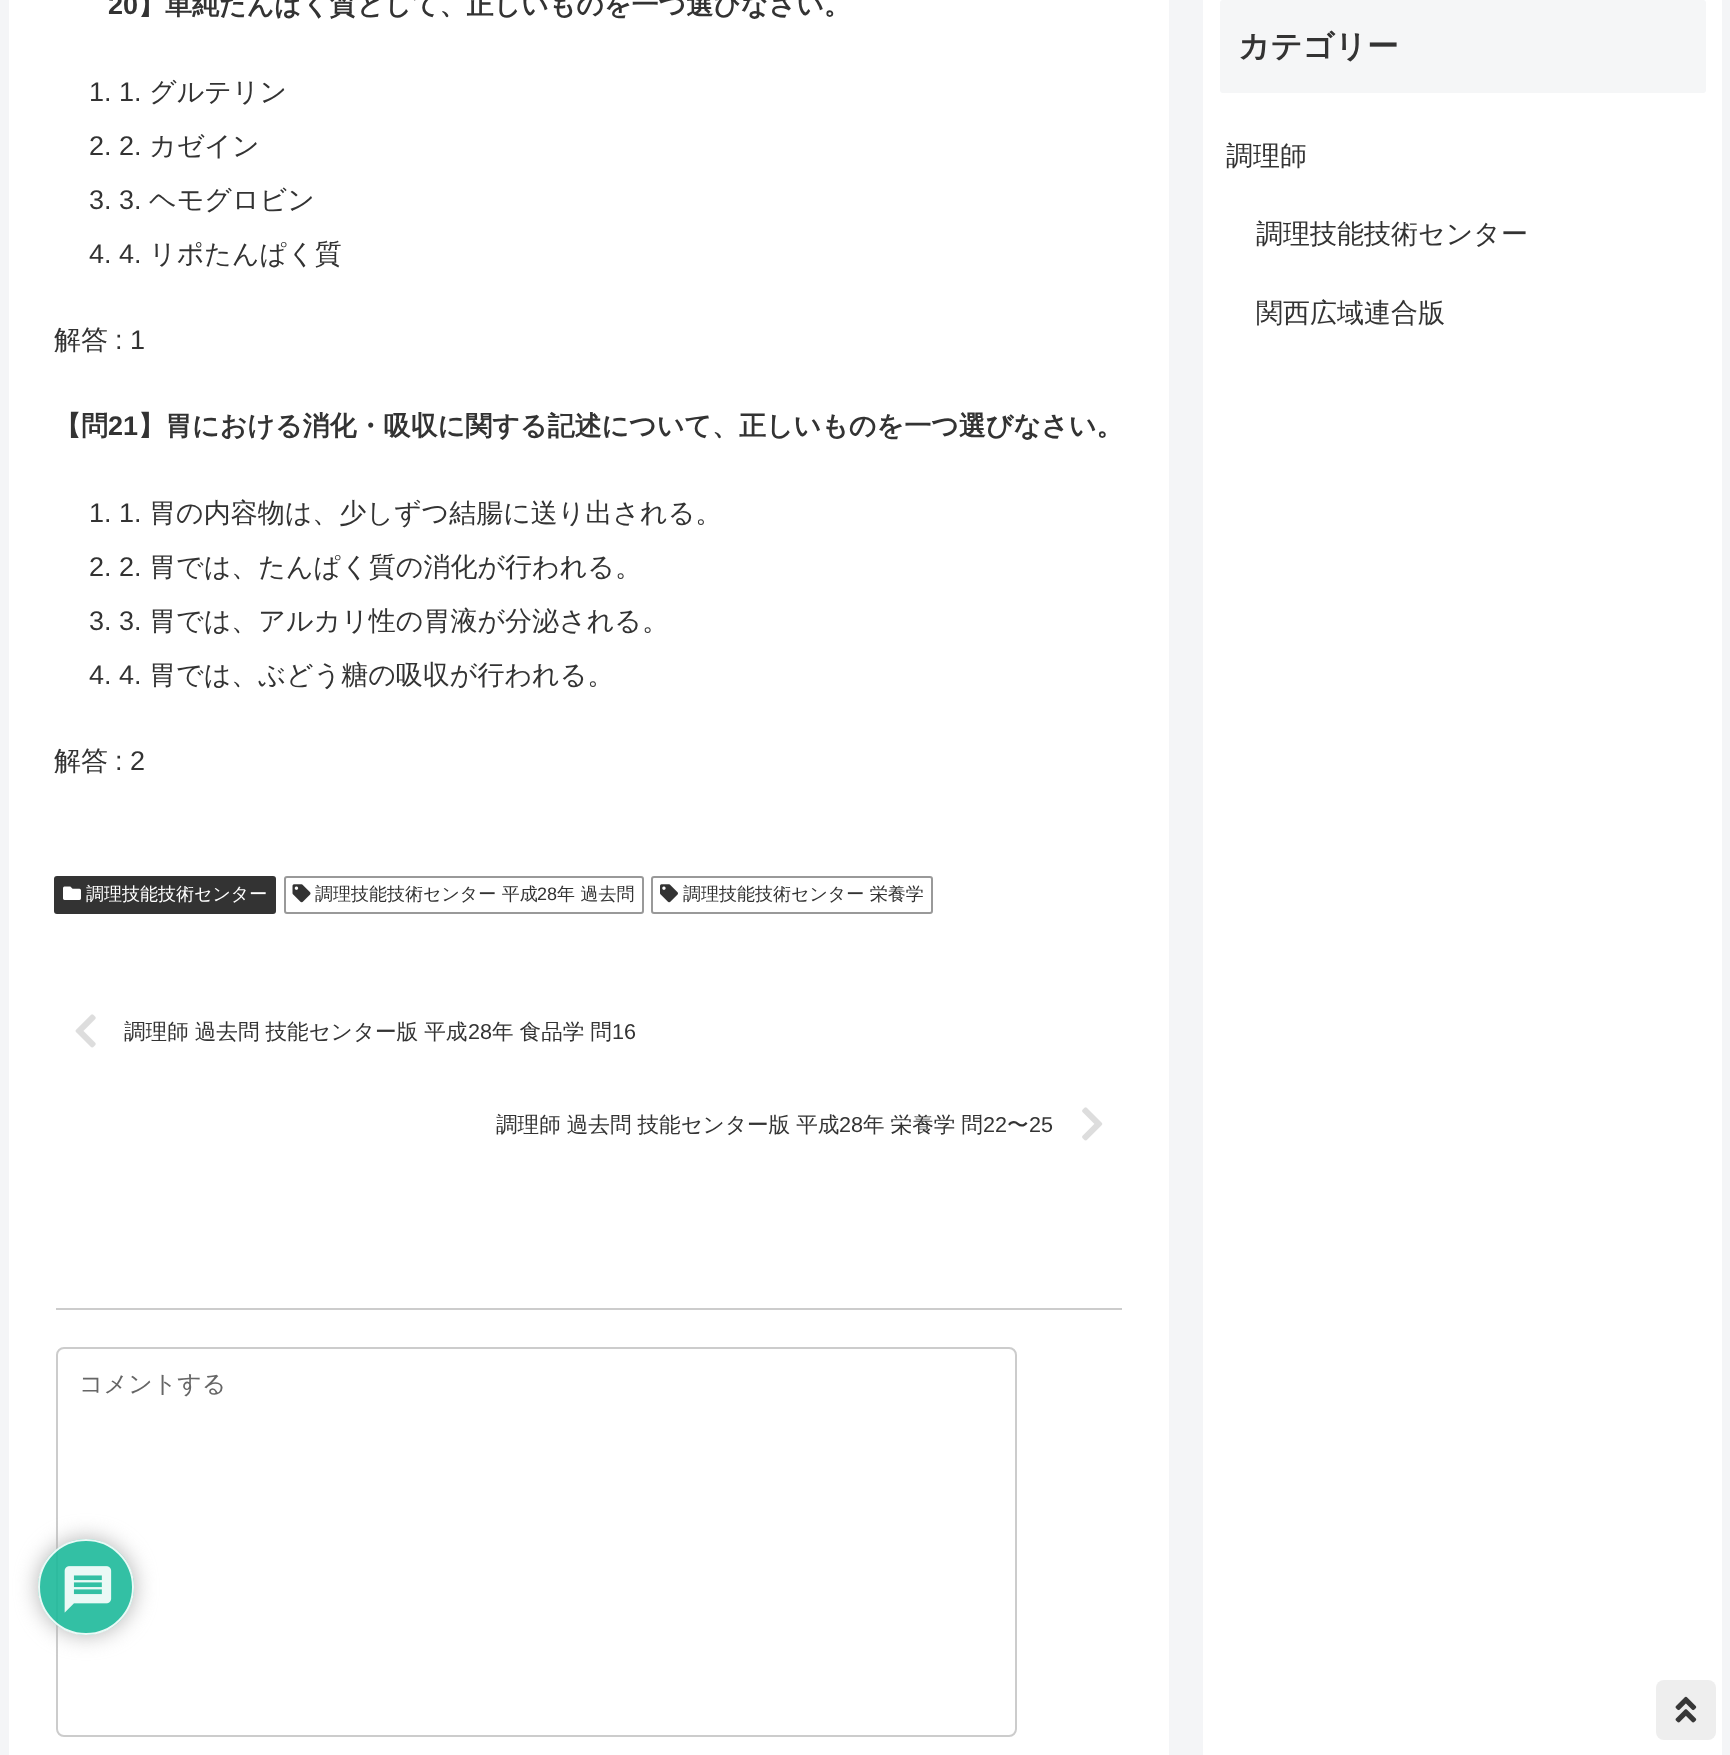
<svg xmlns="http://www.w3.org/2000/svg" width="1730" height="1755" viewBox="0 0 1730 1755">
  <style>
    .t1 { font: bold 27px Liberation Sans; fill: #333; }
    .t2 { font: bold 27px WenQuanYi Zen Hei; fill: #333; }
    .t3 { font: 27px Liberation Sans; fill: #333; }
    .t4 { font: 500 27px WenQuanYi Zen Hei; fill: #333; }
    .t5 { font: 500 18px WenQuanYi Zen Hei; fill: #fff; }
    .t6 { font: 500 18px WenQuanYi Zen Hei; fill: #333; }
    .t7 { font: 18px Liberation Sans; fill: #333; }
    .t8 { font: 500 21.6px WenQuanYi Zen Hei; fill: #333; }
    .t9 { font: 21.6px Liberation Sans; fill: #333; }
    .t10 { font: 500 24px WenQuanYi Zen Hei; fill: #666; }
    .t11 { font: bold 31.5px WenQuanYi Zen Hei; fill: #333; }
  </style>
  <defs>
    <clipPath id="clip1"><path d="M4 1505H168V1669H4ZM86 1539C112.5 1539 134 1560.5 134 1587C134 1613.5 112.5 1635 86 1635C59.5 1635 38 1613.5 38 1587C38 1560.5 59.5 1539 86 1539Z" clip-rule="evenodd"/></clipPath>
  </defs>
  <rect width="100%" height="100%" fill="#f4f5f7"/>
  <rect x="9" y="0" width="1160" height="1755" fill="#fff"/>
  <text x="108" y="14" class="t1">20</text>
  <text x="138" y="14" class="t2">】単純たんぱく質として、正しいものを一つ選びなさい。</text>
  <text x="89" y="101" class="t3">1. 1.</text>
  <text x="149" y="101" class="t4">グルテリン</text>
  <text x="89" y="155" class="t3">2. 2.</text>
  <text x="149" y="155" class="t4">カゼイン</text>
  <text x="89" y="209" class="t3">3. 3.</text>
  <text x="149" y="209" class="t4">ヘモグロビン</text>
  <text x="89" y="263" class="t3">4. 4.</text>
  <text x="149" y="263" class="t4">リポたんぱく質</text>
  <text x="54" y="349" class="t4">解答</text>
  <text x="115" y="349" class="t3">: 1</text>
  <text x="54" y="435" class="t2">【問</text>
  <text x="108" y="435" class="t1">21</text>
  <text x="138" y="435" class="t2">】胃における消化・吸収に関する記述について、正しいものを一つ選びなさい。</text>
  <text x="89" y="522" class="t3">1. 1.</text>
  <text x="149" y="522" class="t4">胃の内容物は、少しずつ結腸に送り出される。</text>
  <text x="89" y="576" class="t3">2. 2.</text>
  <text x="149" y="576" class="t4">胃では、たんぱく質の消化が行われる。</text>
  <text x="89" y="630" class="t3">3. 3.</text>
  <text x="149" y="630" class="t4">胃では、アルカリ性の胃液が分泌される。</text>
  <text x="89" y="684" class="t3">4. 4.</text>
  <text x="149" y="684" class="t4">胃では、ぶどう糖の吸収が行われる。</text>
  <text x="54" y="770" class="t4">解答</text>
  <text x="115" y="770" class="t3">: 2</text>
  <rect x="54" y="876" width="222" height="38" rx="3" fill="#333"/>
  <image x="63" y="886" width="18" height="14" href="images/1.png"/>
  <text x="86" y="900" class="t5">調理技能技術センター</text>
  <rect x="285" y="877" width="358" height="36" rx="2" fill="none" stroke="#999" stroke-width="2"/>
  <image x="292" y="884" width="19" height="19" href="images/2.png"/>
  <text x="315" y="900" class="t6">調理技能技術センター 平成</text>
  <text x="537" y="900" class="t7">28</text>
  <text x="557" y="900" class="t6">年 過去問</text>
  <rect x="652" y="877" width="280" height="36" rx="2" fill="none" stroke="#999" stroke-width="2"/>
  <image x="660" y="884" width="18" height="19" href="images/3.png"/>
  <text x="683" y="900" class="t6">調理技能技術センター 栄養学</text>
  <image x="75" y="1014" width="21" height="34" href="images/4.png"/>
  <text x="124" y="1039" word-spacing="-0.5" class="t8">調理師 過去問 技能センター版 平成</text>
  <text x="468" y="1039" class="t9">28</text>
  <text x="492" y="1039" word-spacing="-0.5" class="t8">年 食品学 問</text>
  <text x="612" y="1039" class="t9">16</text>
  <text x="496" y="1132" word-spacing="-0.5" class="t8">調理師 過去問 技能センター版 平成</text>
  <text x="839" y="1132" class="t9">28</text>
  <text x="863" y="1132" word-spacing="-0.5" class="t8">年 栄養学 問</text>
  <text x="983" y="1132" class="t9">22</text>
  <text x="1007" y="1132" class="t8">〜</text>
  <text x="1029" y="1132" class="t9">25</text>
  <image x="1082" y="1107" width="21" height="34" href="images/5.png"/>
  <rect x="56" y="1308" width="1066" height="2" fill="#ccc"/>
  <rect x="57" y="1348" width="959" height="388" rx="7" fill="none" stroke="#ccc" stroke-width="2"/>
  <text x="79" y="1392" class="t10">コメントする</text>
  <rect x="1203" y="0" width="519" height="1755" fill="#fff"/>
  <rect x="1220" y="0" width="486" height="93" rx="3" fill="#f5f6f7"/>
  <text x="1238" y="57" class="t11">カテゴリー</text>
  <text x="1226" y="165" class="t4">調理師</text>
  <text x="1256" y="243" class="t4">調理技能技術センター</text>
  <text x="1256" y="322" class="t4">関西広域連合版</text>
  <g clip-path="url(#clip1)">
    <rect x="38" y="1539" width="96" height="96" rx="48" fill="#aaaaaae6" filter="blur(11px)"/>
  </g>
  <circle cx="86" cy="1587" r="48" fill="#1db99ae6"/>
  <circle cx="86" cy="1587" r="47" fill="none" stroke="#ffffffe6" stroke-width="2"/>
  <image x="64" y="1566" width="48" height="47" href="images/6.png"/>
  <rect x="1656" y="1680" width="60" height="60" rx="8" fill="#eee"/>
  <image x="1675" y="1696" width="22" height="27" href="images/7.png"/>
</svg>
